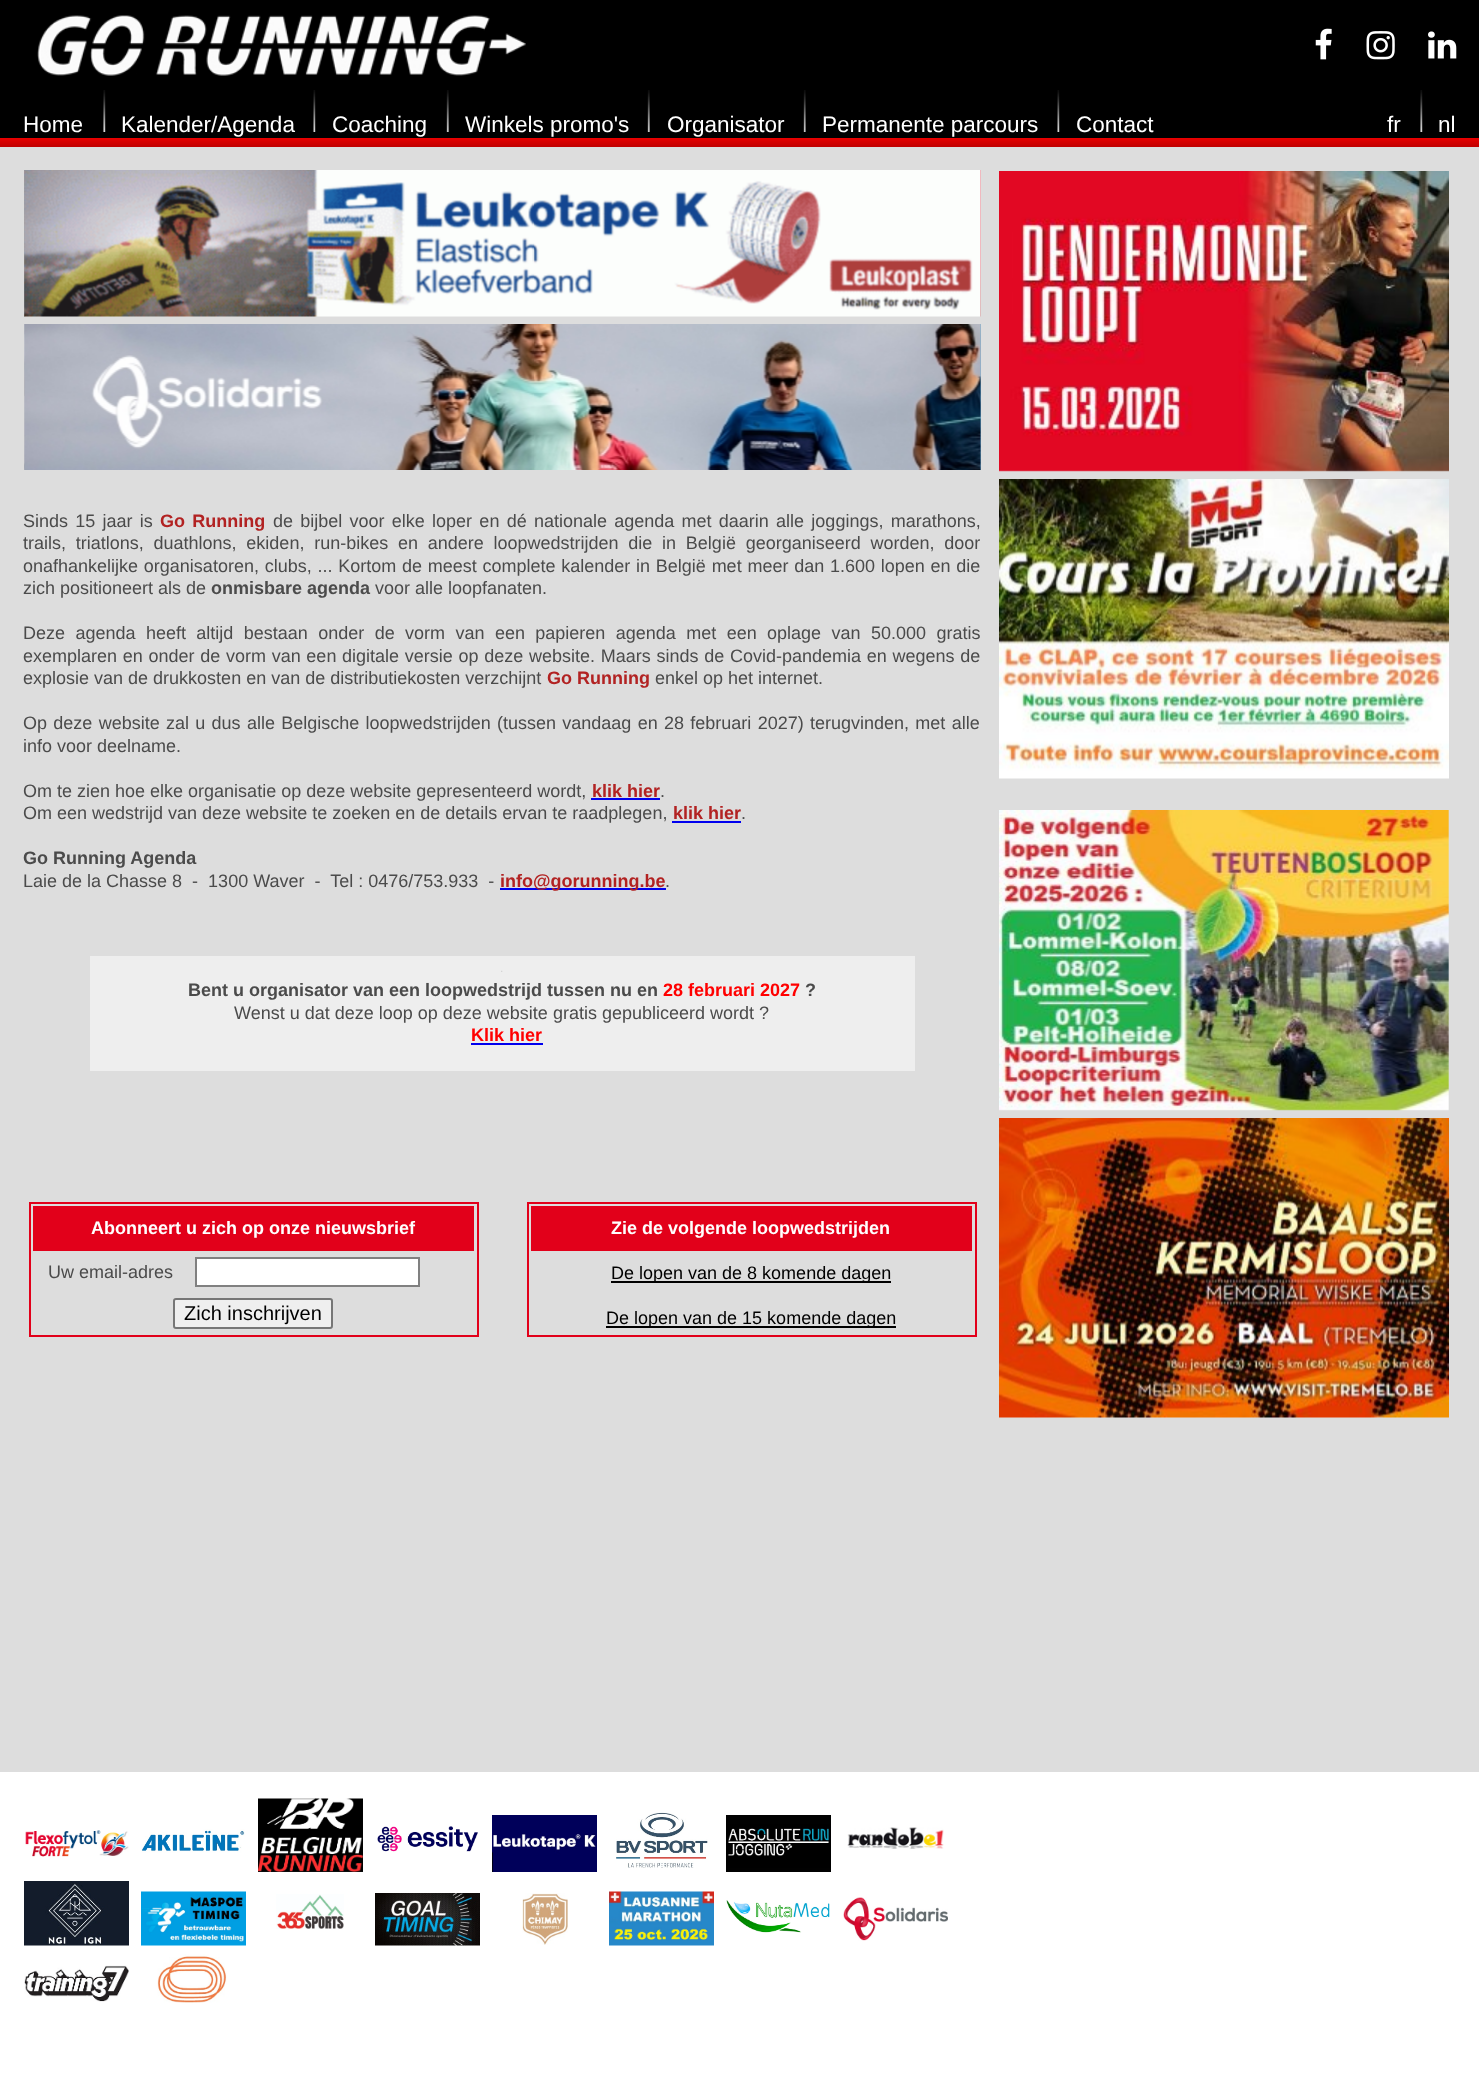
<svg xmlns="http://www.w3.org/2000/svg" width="1479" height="2095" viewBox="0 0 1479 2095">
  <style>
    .t1 { font: 22.5px Liberation Sans; fill: #fff; }
    .t2 { font: 18px Liberation Sans; fill: #4b4b4b; }
    .t3 { font: bold 18px Liberation Sans; fill: #b22222; }
    .t4 { font: bold 18px Liberation Sans; fill: #4b4b4b; }
    .t5 { font: 12px Liberation Sans; fill: #d3d3d3; }
    .t6 { font: bold 18px Liberation Sans; fill: #f00; }
    .t7 { font: bold 18px Liberation Sans; fill: #fff; }
    .t8 { font: 20px Liberation Sans; fill: #000; }
    .t9 { font: 18px Liberation Sans; fill: #000; }
  </style>
  <rect width="100%" height="100%" fill="#fff"/>
  <rect x="0" y="0" width="1479" height="138" fill="#000"/>
  <image x="37" y="15" width="489" height="61" href="images/1.png"/>
  <image x="1315" y="28" width="17" height="32" href="images/2.png"/>
  <image x="1366" y="31" width="29" height="29" href="images/3.png"/>
  <image x="1428" y="31" width="29" height="28" href="images/4.png"/>
  <text x="23" y="132" class="t1">Home</text>
  <image x="103" y="90" width="3" height="42" href="images/5.png"/>
  <text x="121" y="132" class="t1">Kalender/Agenda</text>
  <image x="313" y="90" width="3" height="42" href="images/6.png"/>
  <text x="332" y="132" class="t1">Coaching</text>
  <image x="446" y="90" width="3" height="42" href="images/7.png"/>
  <text x="465" y="132" class="t1">Winkels promo's</text>
  <image x="647" y="90" width="3" height="42" href="images/7.png"/>
  <text x="667" y="132" class="t1">Organisator</text>
  <image x="803" y="90" width="3" height="42" href="images/8.png"/>
  <text x="822" y="132" class="t1">Permanente parcours</text>
  <image x="1057" y="90" width="3" height="42" href="images/6.png"/>
  <text x="1076" y="132" class="t1">Contact</text>
  <text x="1387" y="132" class="t1">fr</text>
  <image x="1420" y="90" width="3" height="42" href="images/5.png"/>
  <text x="1438" y="132" class="t1">nl</text>
  <image x="0" y="138" width="1479" height="9" href="images/9.png"/>
  <rect x="0" y="147" width="1479" height="1625" fill="#ddd"/>
  <image x="24" y="170" width="1" height="147" href="images/10.png"/>
  <image x="24" y="324" width="1" height="146" href="images/11.png"/>
  <image x="24" y="170" width="957" height="147" href="images/12.png"/>
  <image x="24" y="324" width="957" height="146" href="images/13.png"/>
  <image x="980" y="170" width="1" height="147" href="images/14.png"/>
  <rect x="980" y="324" width="1" height="146" fill="#2487c740"/>
  <text x="23" y="527" word-spacing="2.25" class="t2">Sinds 15 jaar is</text>
  <text x="160" y="527" word-spacing="2.25" class="t3">Go Running</text>
  <text x="273" y="527" word-spacing="2.25" class="t2">de bijbel voor elke loper en dé nationale agenda met daarin alle joggings, marathons,</text>
  <text x="23" y="549" word-spacing="4.75" class="t2">trails, triatlons, duathlons, ekiden, run-bikes en andere loopwedstrijden die in België georganiseerd worden, door</text>
  <text x="23" y="572" word-spacing="0.75" class="t2">onafhankelijke organisatoren, clubs, ... Kortom de meest complete kalender in België met meer dan 1.600 lopen en die</text>
  <text x="23" y="594" class="t2">zich positioneert als de</text>
  <text x="211" y="594" class="t4">onmisbare agenda</text>
  <text x="375" y="594" class="t2">voor alle loopfanaten.</text>
  <text x="23" y="639" word-spacing="5.4" class="t2">Deze agenda heeft altijd bestaan onder de vorm van een papieren agenda met een oplage van 50.000 gratis</text>
  <text x="23" y="662" word-spacing="0.7" class="t2">exemplaren en onder de vorm van een digitale versie op deze website. Maars sinds de Covid-pandemia en wegens de</text>
  <text x="23" y="684" class="t2">explosie van de drukkosten en van de distributiekosten verzchijnt</text>
  <text x="547" y="684" class="t3">Go Running</text>
  <text x="655" y="684" class="t2">enkel op het internet.</text>
  <text x="23" y="729" word-spacing="1.3" class="t2">Op deze website zal u dus alle Belgische loopwedstrijden (tussen vandaag en 28 februari 2027) terugvinden, met alle</text>
  <text x="23" y="752" class="t2">info voor deelname.</text>
  <text x="23" y="797" class="t2">Om te zien hoe elke organisatie op deze website gepresenteerd wordt,</text>
  <text x="592" y="797" class="t3">klik hier</text>
  <rect x="591" y="798" width="69" height="2" fill="#00e"/>
  <text x="660" y="797" class="t2">.</text>
  <text x="23" y="819" class="t2">Om een wedstrijd van deze website te zoeken en de details ervan te raadplegen,</text>
  <text x="673" y="819" class="t3">klik hier</text>
  <rect x="672" y="821" width="69" height="2" fill="#00e"/>
  <text x="741" y="819" class="t2">.</text>
  <text x="23" y="864" class="t4">Go Running Agenda</text>
  <text x="23" y="887" class="t2" xml:space="preserve">Laie de la Chasse 8  -  1300 Waver  -  Tel : 0476/753.933  -</text>
  <rect x="500" y="888" width="166" height="2" fill="#00e"/>
  <text x="500" y="887" class="t3">info@gorunning.be</text>
  <text x="665" y="887" class="t2">.</text>
  <rect x="90" y="956" width="825" height="115" fill="#eee"/>
  <text x="500" y="972" class="t5">.</text>
  <text x="188" y="996" class="t4">Bent u organisator van een loopwedstrijd tussen nu en</text>
  <text x="663" y="996" class="t6">28 februari 2027</text>
  <text x="805" y="996" class="t4">?</text>
  <text x="234" y="1019" class="t2">Wenst u dat deze loop op deze website gratis gepubliceerd wordt ?</text>
  <text x="471" y="1041" class="t6">Klik hier</text>
  <rect x="471" y="1043" width="72" height="2" fill="#00e"/>
  <rect x="30" y="1203" width="448" height="133" fill="none" stroke="#e2001a" stroke-width="2"/>
  <rect x="33" y="1206" width="441" height="45" fill="#e2001a"/>
  <text x="91" y="1234" class="t7">Abonneert u zich op onze nieuwsbrief</text>
  <text x="48" y="1278" class="t2">Uw email-adres</text>
  <rect x="196" y="1258" width="223" height="28" fill="#fff" stroke="#808080" stroke-width="2"/>
  <rect x="174" y="1299" width="158" height="29" rx="2" fill="#efefef" stroke="#767676" stroke-width="2"/>
  <text x="184" y="1320" class="t8">Zich inschrijven</text>
  <rect x="528" y="1203" width="448" height="133" fill="none" stroke="#e2001a" stroke-width="2"/>
  <rect x="531" y="1206" width="441" height="45" fill="#e2001a"/>
  <text x="611" y="1234" class="t7">Zie de volgende loopwedstrijden</text>
  <rect x="611" y="1281" width="280" height="2" fill="#000"/>
  <text x="611" y="1279" class="t9">De lopen van de 8 komende dagen</text>
  <rect x="606" y="1326" width="290" height="2" fill="#000"/>
  <text x="606" y="1324" class="t9">De lopen van de 15 komende dagen</text>
  <image x="999" y="171" width="450" height="301" href="images/15.png"/>
  <image x="999" y="479" width="450" height="300" href="images/16.png"/>
  <image x="999" y="810" width="450" height="301" href="images/17.png"/>
  <image x="999" y="1118" width="450" height="300" href="images/18.png"/>
  <image x="25" y="1830" width="104" height="27" href="images/19.png"/>
  <image x="141" y="1829" width="104" height="24" href="images/20.png"/>
  <image x="258" y="1798" width="105" height="74" href="images/21.png"/>
  <image x="377" y="1826" width="101" height="26" href="images/22.png"/>
  <image x="492" y="1815" width="105" height="57" href="images/23.png"/>
  <image x="616" y="1812" width="92" height="56" href="images/24.png"/>
  <image x="726" y="1815" width="105" height="57" href="images/25.png"/>
  <image x="847" y="1827" width="97" height="22" href="images/26.png"/>
  <image x="24" y="1881" width="105" height="65" href="images/27.png"/>
  <image x="141" y="1891" width="105" height="55" href="images/28.png"/>
  <image x="276" y="1894" width="68" height="35" href="images/29.png"/>
  <image x="375" y="1893" width="105" height="53" href="images/30.png"/>
  <image x="522" y="1893" width="46" height="52" href="images/31.png"/>
  <image x="609" y="1891" width="105" height="55" href="images/32.png"/>
  <image x="726" y="1900" width="104" height="33" href="images/33.png"/>
  <image x="843" y="1897" width="105" height="44" href="images/34.png"/>
  <image x="24" y="1965" width="105" height="37" href="images/35.png"/>
  <image x="157" y="1954" width="70" height="49" href="images/36.png"/>
</svg>
